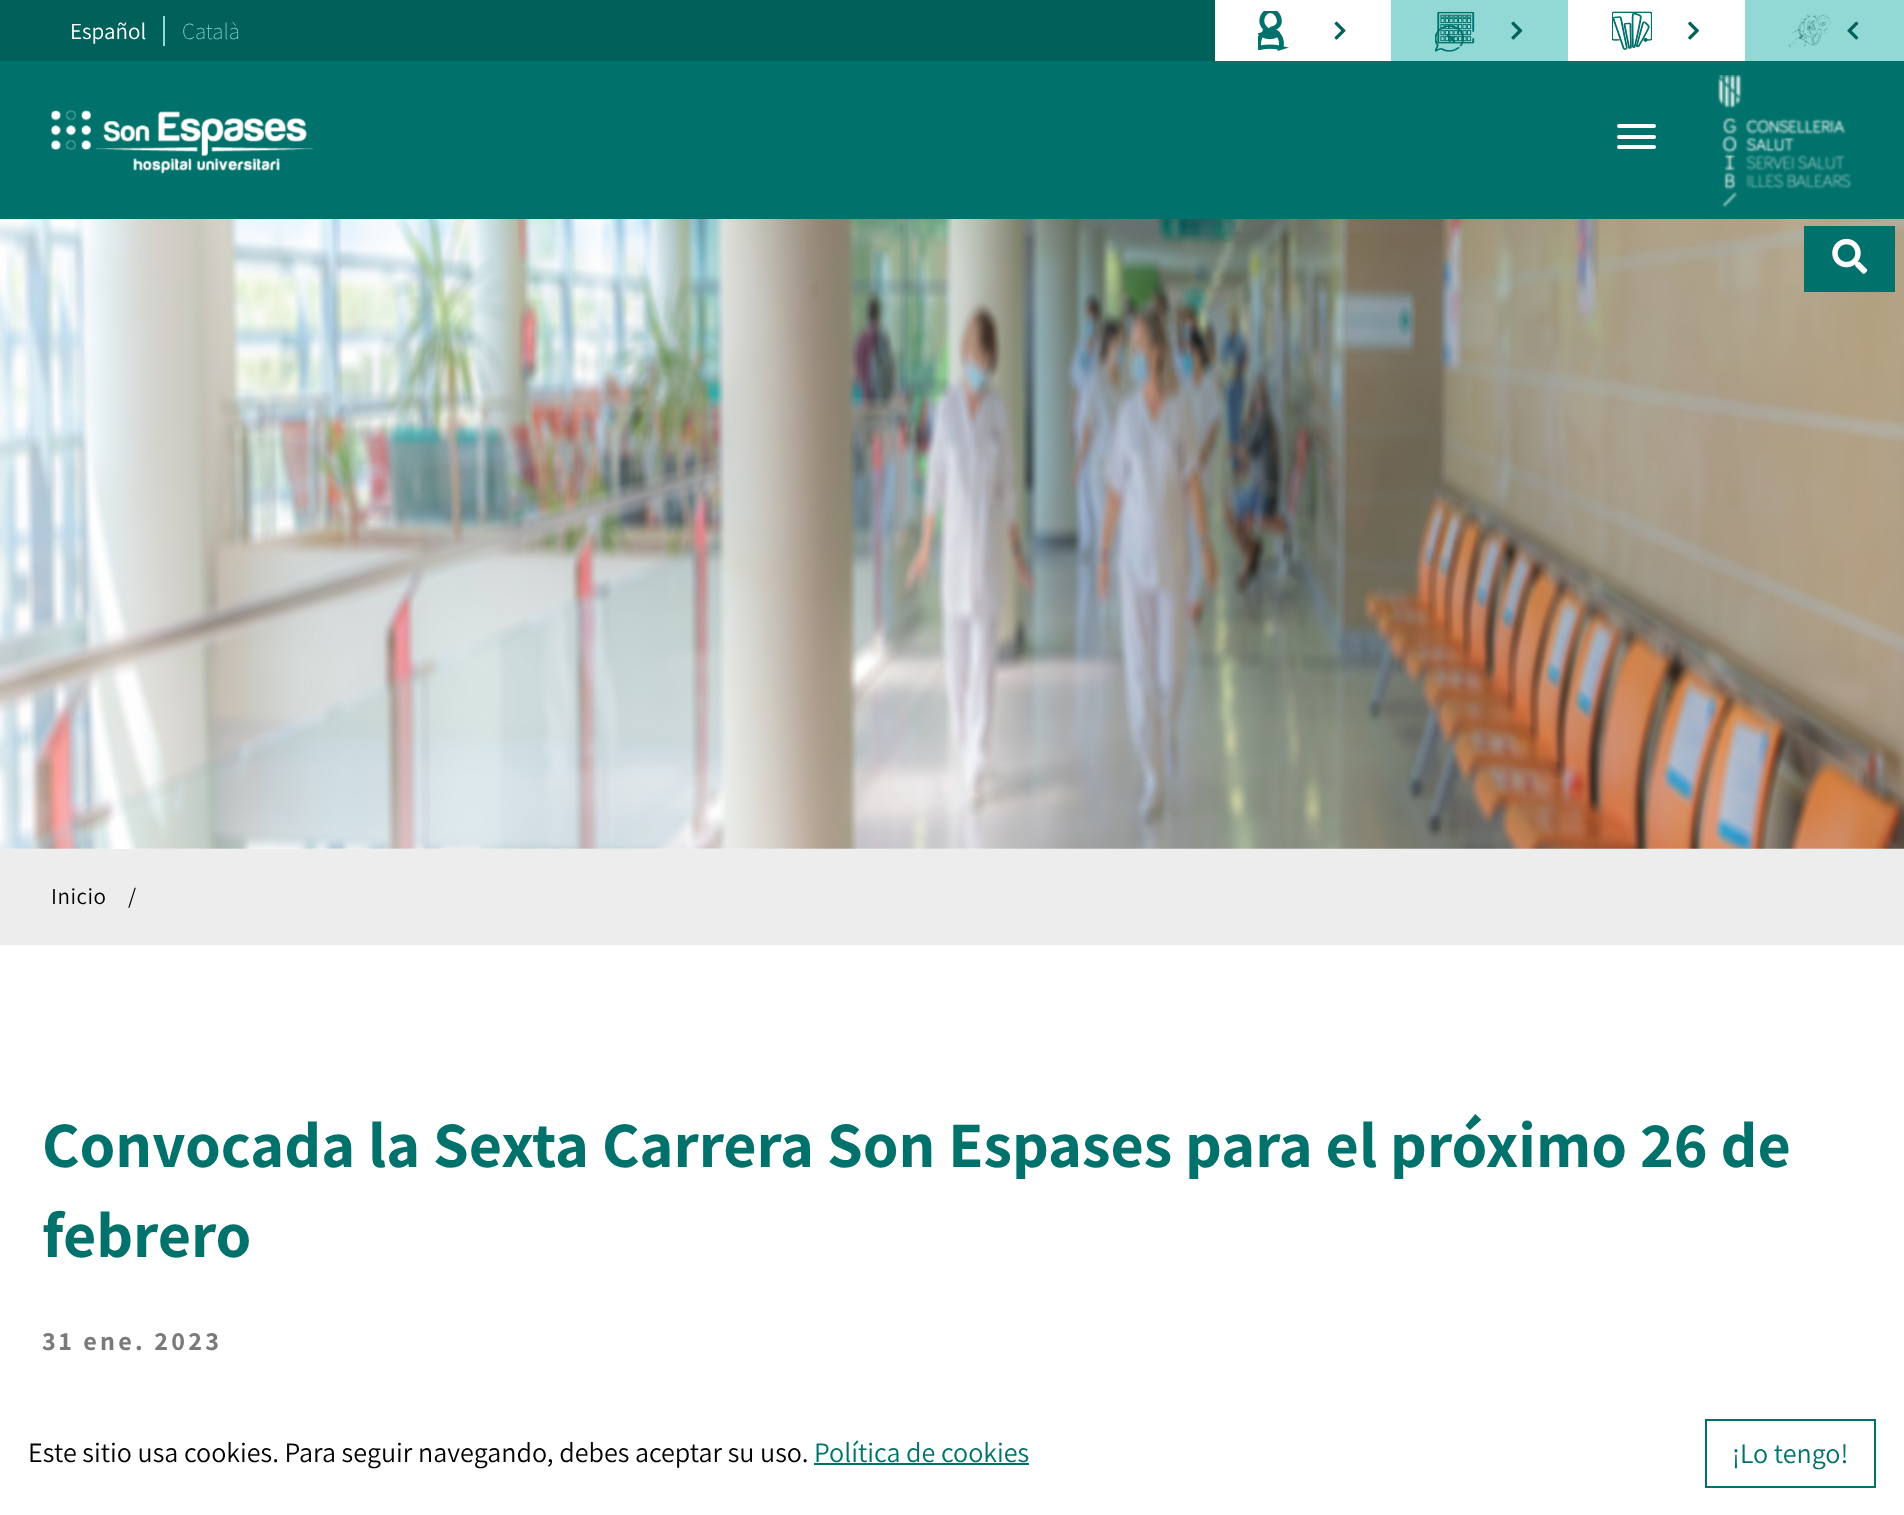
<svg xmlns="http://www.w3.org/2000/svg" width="1904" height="1515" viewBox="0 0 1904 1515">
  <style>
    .t1 { font: 23px Assistant; fill: #fff; }
    .t2 { font: 200 23px Assistant; fill: #92d8d4; }
    .t3 { font: 23px Assistant; letter-spacing: 0.5px; fill: #000; }
    .t4 { font: bold 64.75px Assistant; fill: #00726b; }
    .t5 { font: bold 26.25px Assistant; letter-spacing: 3.25px; fill: #7a7a7a; }
    .t6 { font: 28px Assistant; fill: #000; }
    .t7 { font: 28px Assistant; fill: #00726b; }
  </style>
  <rect width="100%" height="100%" fill="#fff"/>
  <rect x="0" y="61" width="1904" height="158" fill="#00726b"/>
  <rect x="0" y="0" width="1215" height="61" fill="#00615b"/>
  <rect x="163" y="16" width="2" height="30" fill="#92d8d4"/>
  <text x="70" y="39" class="t1">Español</text>
  <text x="182" y="39" class="t2">Català</text>
  <image x="1258" y="11" width="31" height="40" href="images/1.png"/>
  <image x="1334" y="21" width="12" height="19" href="images/2.png"/>
  <rect x="1391" y="0" width="177" height="61" fill="#92d8d4"/>
  <image x="1435" y="11" width="40" height="41" href="images/3.png"/>
  <image x="1511" y="21" width="12" height="19" href="images/4.png"/>
  <image x="1612" y="11" width="40" height="39" href="images/5.png"/>
  <image x="1688" y="21" width="11" height="19" href="images/6.png"/>
  <rect x="1745" y="0" width="159" height="61" fill="#92d8d4"/>
  <image x="1788" y="14" width="43" height="33" href="images/7.png"/>
  <image x="1847" y="21" width="12" height="19" href="images/8.png"/>
  <image x="51" y="110" width="263" height="64" href="images/9.png"/>
  <rect x="1617" y="124" width="39" height="4" rx="2" fill="#fff"/>
  <rect x="1617" y="135" width="39" height="4" rx="2" fill="#fff"/>
  <rect x="1617" y="145" width="39" height="4" rx="2" fill="#fff"/>
  <image x="1717" y="75" width="135" height="133" href="images/10.png"/>
  <image x="0" y="219" width="1904" height="630" href="images/12.png"/>
  <rect x="1804" y="226" width="91" height="66" fill="#00726b"/>
  <image x="1832" y="238" width="36" height="36" href="images/11.png"/>
  <rect x="0" y="849" width="1904" height="96" fill="#ededed"/>
  <text x="51" y="904" class="t3">Inicio</text>
  <text x="128" y="904" class="t3">/</text>
  <text x="42" y="1167" class="t4">Convocada la Sexta Carrera Son Espases para el próximo 26 de</text>
  <text x="42" y="1257" class="t4">febrero</text>
  <text x="42" y="1350" class="t5">31 ene. 2023</text>
  <text x="28" y="1462" class="t6">Este sitio usa cookies. Para seguir navegando, debes aceptar su uso.</text>
  <text x="814" y="1462" class="t7">Política de cookies</text>
  <rect x="814" y="1463" width="215" height="2" fill="#00726b"/>
  <rect x="1706" y="1420" width="169" height="67" fill="none" stroke="#00726b" stroke-width="2"/>
  <text x="1732" y="1463" class="t7">¡Lo tengo!</text>
</svg>
